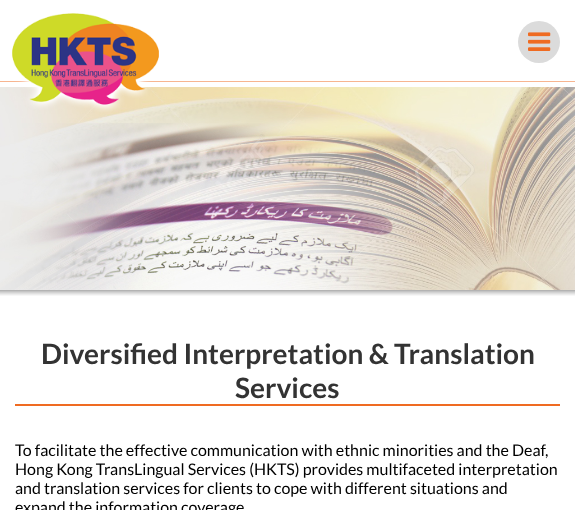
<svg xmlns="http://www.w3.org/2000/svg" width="575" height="510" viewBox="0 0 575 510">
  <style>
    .t1 { font: bold 28px Lato; fill: #333; }
    .t2 { font: 16px Lato; fill: #000; }
  </style>
  <rect width="100%" height="100%" fill="#fff"/>
  <rect x="0" y="81" width="575" height="1" fill="#f7b590"/>
  <image x="0" y="87" width="575" height="203" href="images/3.png"/>
  <image x="12" y="13" width="147" height="99" href="images/1.png"/>
  <circle cx="539" cy="42" r="21" fill="#dbdbdb"/>
  <image x="528" y="32" width="23" height="19" href="images/2.png"/>
  <image x="0" y="290" width="575" height="6" href="images/4.png"/>
  <rect x="15" y="404" width="545" height="2" fill="#ef6b22"/>
  <text x="41" y="364" class="t1">Diversified Interpretation &amp; Translation</text>
  <text x="235" y="398" class="t1">Services</text>
  <text x="15" y="456" class="t2">To facilitate the effective communication with ethnic minorities and the Deaf,</text>
  <text x="15" y="475" class="t2">Hong Kong TransLingual Services (HKTS) provides multifaceted interpretation</text>
  <text x="15" y="494" class="t2">and translation services for clients to cope with different situations and</text>
  <text x="15" y="513" class="t2">expand the information coverage</text>
</svg>
